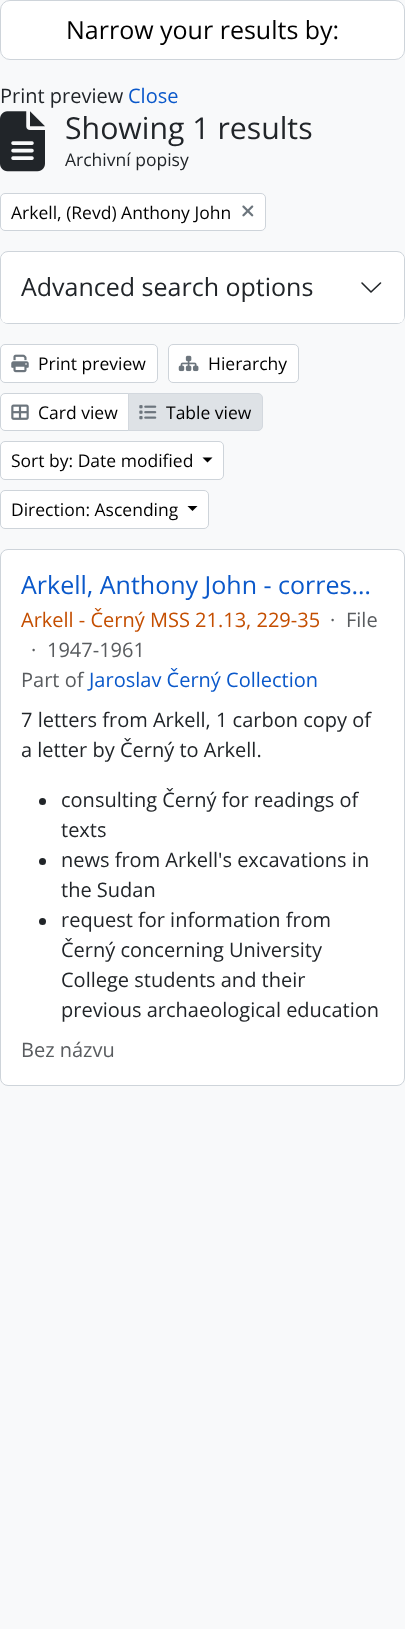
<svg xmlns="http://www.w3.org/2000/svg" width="405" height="1629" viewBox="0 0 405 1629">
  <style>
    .t1 { font: 25px Open Sans; fill: #000; }
    .t2 { font: 20px Open Sans; fill: #212529; }
    .t3 { font: 20px Open Sans; fill: #0a58ca; }
    .t4 { font: 30.25px Open Sans; fill: #212529; }
    .t5 { font: 17.5px Open Sans; fill: #212529; }
    .t6 { font: 17.5px Open Sans; fill: #000; }
    .t7 { font: 25px Open Sans; fill: #212529; }
    .t8 { font: 25px Open Sans; fill: #0a58ca; }
    .t9 { font: 20px Open Sans; fill: #c44e00; }
    .t10 { font: 20px Open Sans; fill: #595c5f; }
  </style>
  <rect width="100%" height="100%" fill="#f8f9fa"/>
  <rect x="0.5" y="0.5" width="404" height="59" rx="9.5" fill="#fff" stroke="#ced4da"/>
  <text x="66" y="39" class="t1">Narrow your results by:</text>
  <text x="0" y="103" class="t2">Print preview</text>
  <text x="128" y="103" class="t3">Close</text>
  <image x="0" y="111" width="45" height="61" href="images/1.png"/>
  <text x="65" y="139" class="t4">Showing 1 results</text>
  <text x="65" y="166" class="t5">Archivní popisy</text>
  <rect x="0.5" y="193.5" width="265" height="37" rx="4.5" fill="#fff" stroke="#ced4da"/>
  <text x="11" y="219" class="t6">Arkell, (Revd) Anthony John</text>
  <image x="242" y="205" width="12" height="12" href="images/2.png"/>
  <rect x="0.5" y="251.5" width="404" height="72" rx="7.5" fill="#fff" stroke="#ced4da"/>
  <rect x="1" y="253" width="403" height="70" rx="6" fill="#fff"/>
  <text x="21" y="296" class="t7">Advanced search options</text>
  <path d="M362 283L371 292L380.5 283" fill="none" stroke="#212529" stroke-width="1.6" stroke-linecap="round" stroke-linejoin="round"/>
  <rect x="0.5" y="344.5" width="157" height="38" rx="4.5" fill="#fff" stroke="#ced4da"/>
  <image x="11" y="354" width="18" height="19" href="images/3.png"/>
  <text x="38" y="370" class="t6">Print preview</text>
  <rect x="168.5" y="344.5" width="130" height="38" rx="4.5" fill="#fff" stroke="#ced4da"/>
  <image x="178" y="355" width="21" height="17" href="images/4.png"/>
  <text x="208" y="370" class="t6">Hierarchy</text>
  <path d="M5 393.5H128.5V430.5H5C2.5 430.5 .5 428.5 .5 426V398C.5 395.5 2.5 393.5 5 393.5Z" fill="#fff" stroke="#ced4da"/>
  <image x="11" y="404" width="18" height="16" href="images/5.png"/>
  <text x="38" y="419" class="t6">Card view</text>
  <path d="M128.5 393.5H258C260.5 393.5 262.5 395.5 262.5 398V426C262.5 428.5 260.5 430.5 258 430.5H128.5Z" fill="#dee2e6" stroke="#d3d8de"/>
  <image x="139" y="405" width="18" height="15" href="images/6.png"/>
  <text x="166" y="419" class="t6">Table view</text>
  <rect x="0.5" y="441.5" width="223" height="38" rx="4.5" fill="#fff" stroke="#ced4da"/>
  <text x="11" y="467" class="t6">Sort by: Date modified</text>
  <path d="M202.5 457.5H212.5L207.5 462.5Z" fill="#000"/>
  <rect x="0.5" y="490.5" width="208" height="38" rx="4.5" fill="#fff" stroke="#ced4da"/>
  <text x="11" y="516" class="t6">Direction: Ascending</text>
  <path d="M187.5 506H197.5L192.5 511Z" fill="#000"/>
  <rect x="0.5" y="549.5" width="404" height="536" rx="7.5" fill="#fff" stroke="#ced4da"/>
  <text x="21" y="594" class="t8">Arkell, Anthony John - corres…</text>
  <text x="21" y="627" class="t9">Arkell - Černý MSS 21.13, 229-35</text>
  <text x="330" y="627" class="t10">·</text>
  <text x="346" y="627" class="t10">File</text>
  <text x="31" y="657" class="t10">·</text>
  <text x="47" y="657" class="t10">1947-1961</text>
  <text x="21" y="687" class="t10">Part of</text>
  <text x="89" y="687" class="t3">Jaroslav Černý Collection</text>
  <text x="21" y="727" class="t2">7 letters from Arkell, 1 carbon copy of</text>
  <text x="21" y="757" class="t2">a letter by Černý to Arkell.</text>
  <circle cx="42.5" cy="801.5" r="3.5" fill="#212529"/>
  <text x="61" y="807" class="t2">consulting Černý for readings of</text>
  <text x="61" y="837" class="t2">texts</text>
  <circle cx="42.5" cy="861.5" r="3.5" fill="#212529"/>
  <text x="61" y="867" class="t2">news from Arkell's excavations in</text>
  <text x="61" y="897" class="t2">the Sudan</text>
  <circle cx="42.5" cy="921.5" r="3.5" fill="#212529"/>
  <text x="61" y="927" class="t2">request for information from</text>
  <text x="61" y="957" class="t2">Černý concerning University</text>
  <text x="61" y="987" class="t2">College students and their</text>
  <text x="61" y="1017" class="t2">previous archaeological education</text>
  <text x="21" y="1057" class="t10">Bez názvu</text>
</svg>
